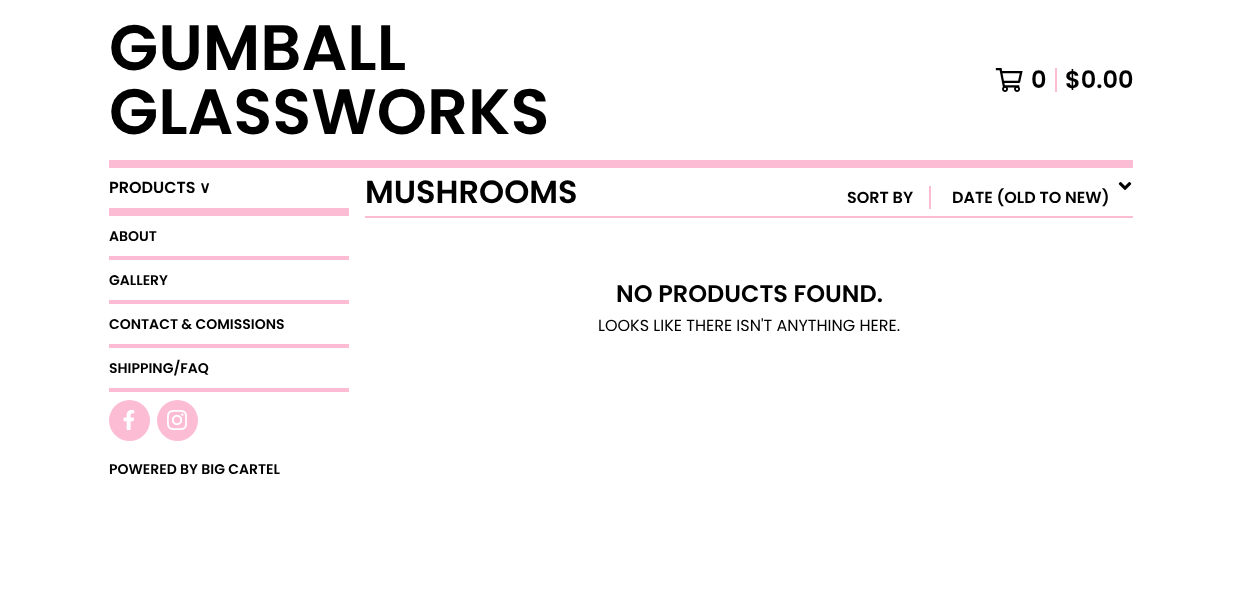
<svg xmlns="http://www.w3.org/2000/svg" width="1242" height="606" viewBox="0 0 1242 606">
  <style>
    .t1 { font: 600 64px Poppins; fill: #000; }
    .t2 { font: 600 24px Poppins; fill: #000; }
    .t3 { font: 600 16px Poppins; fill: #000; }
    .t4 { font: bold 16px DejaVu Sans; fill: #000; }
    .t5 { font: 600 14px Poppins; fill: #000; }
    .t6 { font: 600 32px Poppins; fill: #000; }
    .t7 { font: 16px Poppins; fill: #000; }
  </style>
  <rect width="100%" height="100%" fill="#fff"/>
  <rect x="109" y="160" width="1024" height="8" fill="#fcbcd4"/>
  <text x="109" y="70" class="t1">GUMBALL</text>
  <text x="109" y="134" class="t1">GLASSWORKS</text>
  <image x="995" y="68" width="28" height="24" href="images/1.png"/>
  <rect x="1055" y="68" width="2" height="24" fill="#fcbcd4"/>
  <text x="1031" y="88" class="t2">0</text>
  <text x="1065" y="88" class="t2">$0.00</text>
  <rect x="109" y="208" width="240" height="8" fill="#fcbcd4"/>
  <text x="109" y="193" class="t3">PRODUCTS</text>
  <text x="199" y="193" class="t4">∨</text>
  <rect x="109" y="388" width="240" height="4" fill="#fcbcd4"/>
  <rect x="109" y="256" width="240" height="4" fill="#fcbcd4"/>
  <text x="109" y="241" class="t5">ABOUT</text>
  <rect x="109" y="300" width="240" height="4" fill="#fcbcd4"/>
  <text x="109" y="285" class="t5">GALLERY</text>
  <rect x="109" y="344" width="240" height="4" fill="#fcbcd4"/>
  <text x="109" y="329" class="t5">CONTACT &amp; COMISSIONS</text>
  <text x="109" y="373" class="t5">SHIPPING/FAQ</text>
  <circle cx="129.5" cy="420.5" r="20.5" fill="#fcbcd4"/>
  <image x="123" y="410" width="12" height="20" href="images/2.png"/>
  <circle cx="177.5" cy="420.5" r="20.5" fill="#fcbcd4"/>
  <image x="167" y="410" width="20" height="20" href="images/3.png"/>
  <text x="109" y="474" class="t5">POWERED BY BIG CARTEL</text>
  <rect x="365" y="216" width="768" height="2" fill="#fcbcd4"/>
  <text x="365" y="203" class="t6">MUSHROOMS</text>
  <text x="847" y="203" class="t3">SORT BY</text>
  <rect x="929" y="186" width="2" height="23" fill="#fcbcd4"/>
  <image x="1118" y="182" width="14" height="8" href="images/4.png"/>
  <text x="952" y="203" class="t3">DATE (OLD TO NEW)</text>
  <text x="616" y="302" class="t2">NO PRODUCTS FOUND.</text>
  <text x="598" y="331" class="t7">LOOKS LIKE THERE ISN'T ANYTHING HERE.</text>
</svg>
